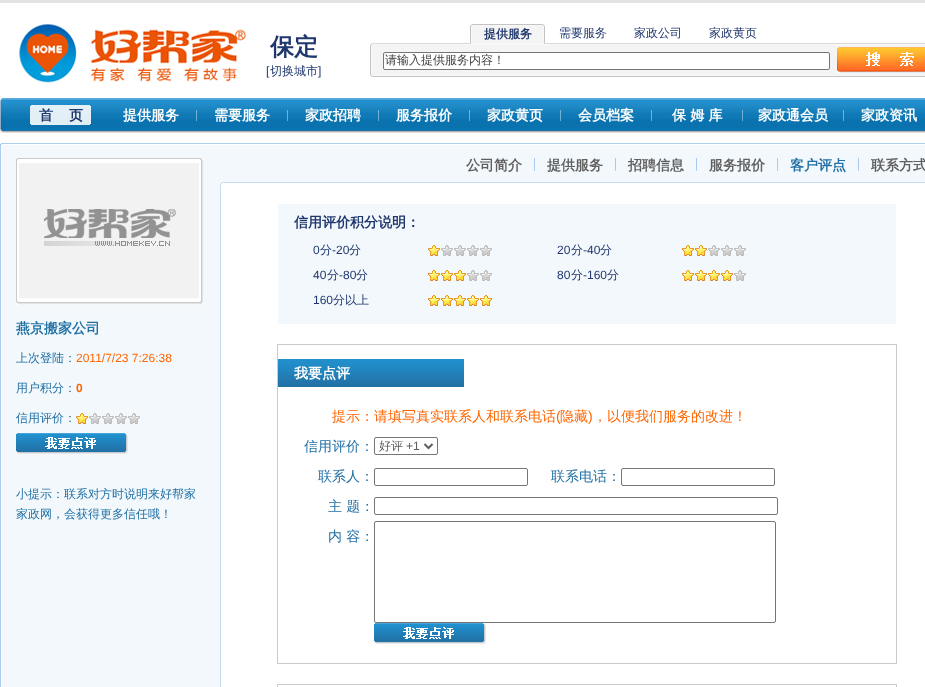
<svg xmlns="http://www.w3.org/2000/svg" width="925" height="687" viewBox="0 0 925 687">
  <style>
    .t1 { font: bold 24px WenQuanYi Zen Hei; fill: #1f376d; }
    .t2 { font: 12px Liberation Sans; fill: #1f376d; }
    .t3 { font: 500 12px WenQuanYi Zen Hei; fill: #1f376d; }
    .t4 { font: bold 12px WenQuanYi Zen Hei; fill: #1f376d; }
    .t5 { font: 500 12px WenQuanYi Zen Hei; fill: #404040; }
    .t6 { font: bold 14px WenQuanYi Zen Hei; fill: #1f376d; }
    .t7 { font: bold 14px WenQuanYi Zen Hei; fill: #fff; }
    .t8 { font: bold 14px WenQuanYi Zen Hei; fill: #2271a5; }
    .t9 { font: 500 12px WenQuanYi Zen Hei; fill: #2271a5; }
    .t10 { font: 12px Liberation Sans; fill: #f60; }
    .t11 { font: bold 12px Liberation Sans; fill: #f60; }
    .t12 { font: bold 14px WenQuanYi Zen Hei; fill: #5f5f5f; }
    .t13 { font: 500 14px WenQuanYi Zen Hei; fill: #f60; }
    .t14 { font: 14px Liberation Sans; fill: #f60; }
    .t15 { font: 500 14px WenQuanYi Zen Hei; fill: #2271a5; }
    .t16 { font: 500 12px WenQuanYi Zen Hei; fill: #5f5f5f; }
    .t17 { font: 12px Liberation Sans; fill: #5f5f5f; }
  </style>
  <rect width="100%" height="100%" fill="#fff"/>
  <rect x="0" y="0" width="925" height="3" fill="#e3e3e3"/>
  <image x="18" y="23" width="231" height="60" href="images/1.png"/>
  <text x="270" y="55" class="t1">保定</text>
  <text x="266" y="75" class="t2">[</text>
  <text x="270" y="75" class="t3">切换城市</text>
  <text x="318" y="75" class="t2">]</text>
  <image x="370" y="43" width="555" height="34" href="images/3.png"/>
  <image x="470" y="24" width="75" height="20" href="images/2.png"/>
  <text x="484" y="38" class="t4">提供服务</text>
  <text x="559" y="37" class="t3">需要服务</text>
  <text x="634" y="37" class="t3">家政公司</text>
  <text x="709" y="37" class="t3">家政黄页</text>
  <rect x="383.5" y="52.5" width="446" height="17" rx="1.5" fill="#fff" stroke="#767676"/>
  <text x="385" y="64" class="t5">请输入提供服务内容！</text>
  <image x="837" y="47" width="88" height="26" href="images/4.png"/>
  <image x="0" y="98" width="925" height="35" href="images/5.png"/>
  <text x="39" y="120" class="t6">首</text>
  <text x="69" y="120" class="t6">页</text>
  <text x="123" y="120" class="t7">提供服务</text>
  <image x="196" y="110" width="1" height="11" href="images/6.png"/>
  <text x="214" y="120" class="t7">需要服务</text>
  <image x="287" y="110" width="1" height="11" href="images/6.png"/>
  <text x="305" y="120" class="t7">家政招聘</text>
  <image x="378" y="110" width="1" height="11" href="images/6.png"/>
  <text x="396" y="120" class="t7">服务报价</text>
  <image x="469" y="110" width="1" height="11" href="images/6.png"/>
  <text x="487" y="120" class="t7">家政黄页</text>
  <image x="560" y="110" width="1" height="11" href="images/6.png"/>
  <text x="578" y="120" class="t7">会员档案</text>
  <image x="651" y="110" width="1" height="11" href="images/6.png"/>
  <text x="672" y="120" class="t7">保 姆 库</text>
  <image x="742" y="110" width="1" height="11" href="images/6.png"/>
  <text x="758" y="120" class="t7">家政通会员</text>
  <image x="843" y="110" width="1" height="11" href="images/6.png"/>
  <text x="861" y="120" class="t7">家政资讯</text>
  <image x="0" y="186" width="221" height="501" href="images/7.png"/>
  <image x="0" y="143" width="224" height="43" href="images/8.png"/>
  <image x="16" y="158" width="188" height="147" href="images/9.png"/>
  <image x="19" y="163" width="180" height="135" href="images/10.png"/>
  <text x="16" y="333" class="t8">燕京搬家公司</text>
  <text x="16" y="362" class="t9">上次登陆：</text>
  <text x="76" y="362" class="t10">2011/7/23 7:26:38</text>
  <text x="16" y="392" class="t9">用户积分：</text>
  <text x="76" y="392" class="t11">0</text>
  <text x="16" y="422" class="t9">信用评价：</text>
  <image x="76" y="413" width="64" height="11" href="images/11.png"/>
  <image x="16" y="433" width="112" height="21" href="images/12.png"/>
  <text x="16" y="498" class="t9">小提示：联系对方时说明来好帮家</text>
  <text x="16" y="518" class="t9">家政网，会获得更多信任哦！</text>
  <image x="224" y="143" width="701" height="40" href="images/13.png"/>
  <text x="466" y="170" class="t12">公司简介</text>
  <rect x="534" y="158" width="1" height="13" fill="#aacbee"/>
  <text x="547" y="170" class="t12">提供服务</text>
  <rect x="615" y="158" width="1" height="13" fill="#aacbee"/>
  <text x="628" y="170" class="t12">招聘信息</text>
  <rect x="696" y="158" width="1" height="13" fill="#aacbee"/>
  <text x="709" y="170" class="t12">服务报价</text>
  <rect x="777" y="158" width="1" height="13" fill="#aacbee"/>
  <text x="790" y="170" class="t8">客户评点</text>
  <rect x="858" y="158" width="1" height="13" fill="#aacbee"/>
  <text x="871" y="170" class="t12">联系方式</text>
  <rect x="278" y="204" width="618" height="120" fill="#f3f8fd"/>
  <text x="294" y="227" class="t6">信用评价积分说明：</text>
  <text x="313" y="254" class="t2">0</text>
  <text x="320" y="254" class="t3">分</text>
  <text x="332" y="254" class="t2">-20</text>
  <text x="349" y="254" class="t3">分</text>
  <image x="428" y="245" width="64" height="11" href="images/11.png"/>
  <text x="557" y="254" class="t2">20</text>
  <text x="571" y="254" class="t3">分</text>
  <text x="583" y="254" class="t2">-40</text>
  <text x="600" y="254" class="t3">分</text>
  <image x="682" y="245" width="64" height="11" href="images/14.png"/>
  <text x="313" y="279" class="t2">40</text>
  <text x="327" y="279" class="t3">分</text>
  <text x="339" y="279" class="t2">-80</text>
  <text x="356" y="279" class="t3">分</text>
  <image x="428" y="270" width="64" height="11" href="images/15.png"/>
  <text x="557" y="279" class="t2">80</text>
  <text x="571" y="279" class="t3">分</text>
  <text x="583" y="279" class="t2">-160</text>
  <text x="607" y="279" class="t3">分</text>
  <image x="682" y="270" width="64" height="11" href="images/16.png"/>
  <text x="313" y="304" class="t2">160</text>
  <text x="333" y="304" class="t3">分以上</text>
  <image x="428" y="295" width="64" height="11" href="images/17.png"/>
  <rect x="277.5" y="344.5" width="619" height="319" fill="none" stroke="#cacaca"/>
  <image x="278" y="359" width="186" height="28" href="images/18.png"/>
  <text x="294" y="378" class="t7">我要点评</text>
  <text x="332" y="421" class="t13">提示：请填写真实联系人和联系电话</text>
  <text x="556" y="421" class="t14">(</text>
  <text x="560" y="421" class="t13">隐藏</text>
  <text x="588" y="421" class="t14">)</text>
  <text x="593" y="421" class="t13">，以便我们服务的改进！</text>
  <text x="304" y="451" class="t15">信用评价：</text>
  <rect x="374.5" y="437.5" width="63" height="17" rx="1.5" fill="none" stroke="#767676"/>
  <path d="M424.5 444L428.5 448L432.5 444" fill="none" stroke="#5f5f5f" stroke-width="2"/>
  <text x="379" y="450" class="t16">好评</text>
  <text x="406" y="450" class="t17">+1</text>
  <text x="318" y="481" class="t15">联系人：</text>
  <rect x="374.5" y="468.5" width="153" height="17" rx="1.5" fill="none" stroke="#767676"/>
  <text x="551" y="481" class="t15">联系电话：</text>
  <rect x="621.5" y="468.5" width="153" height="17" rx="1.5" fill="none" stroke="#767676"/>
  <text x="328" y="511" class="t15">主 题：</text>
  <rect x="374.5" y="497.5" width="403" height="17" rx="1.5" fill="none" stroke="#767676"/>
  <text x="328" y="541" class="t15">内 容：</text>
  <rect x="374.5" y="521.5" width="401" height="101" rx="1.5" fill="none" stroke="#767676"/>
  <image x="374" y="623" width="112" height="21" href="images/12.png"/>
  <rect x="277.5" y="684.5" width="619" height="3" fill="none" stroke="#cacaca"/>
</svg>
